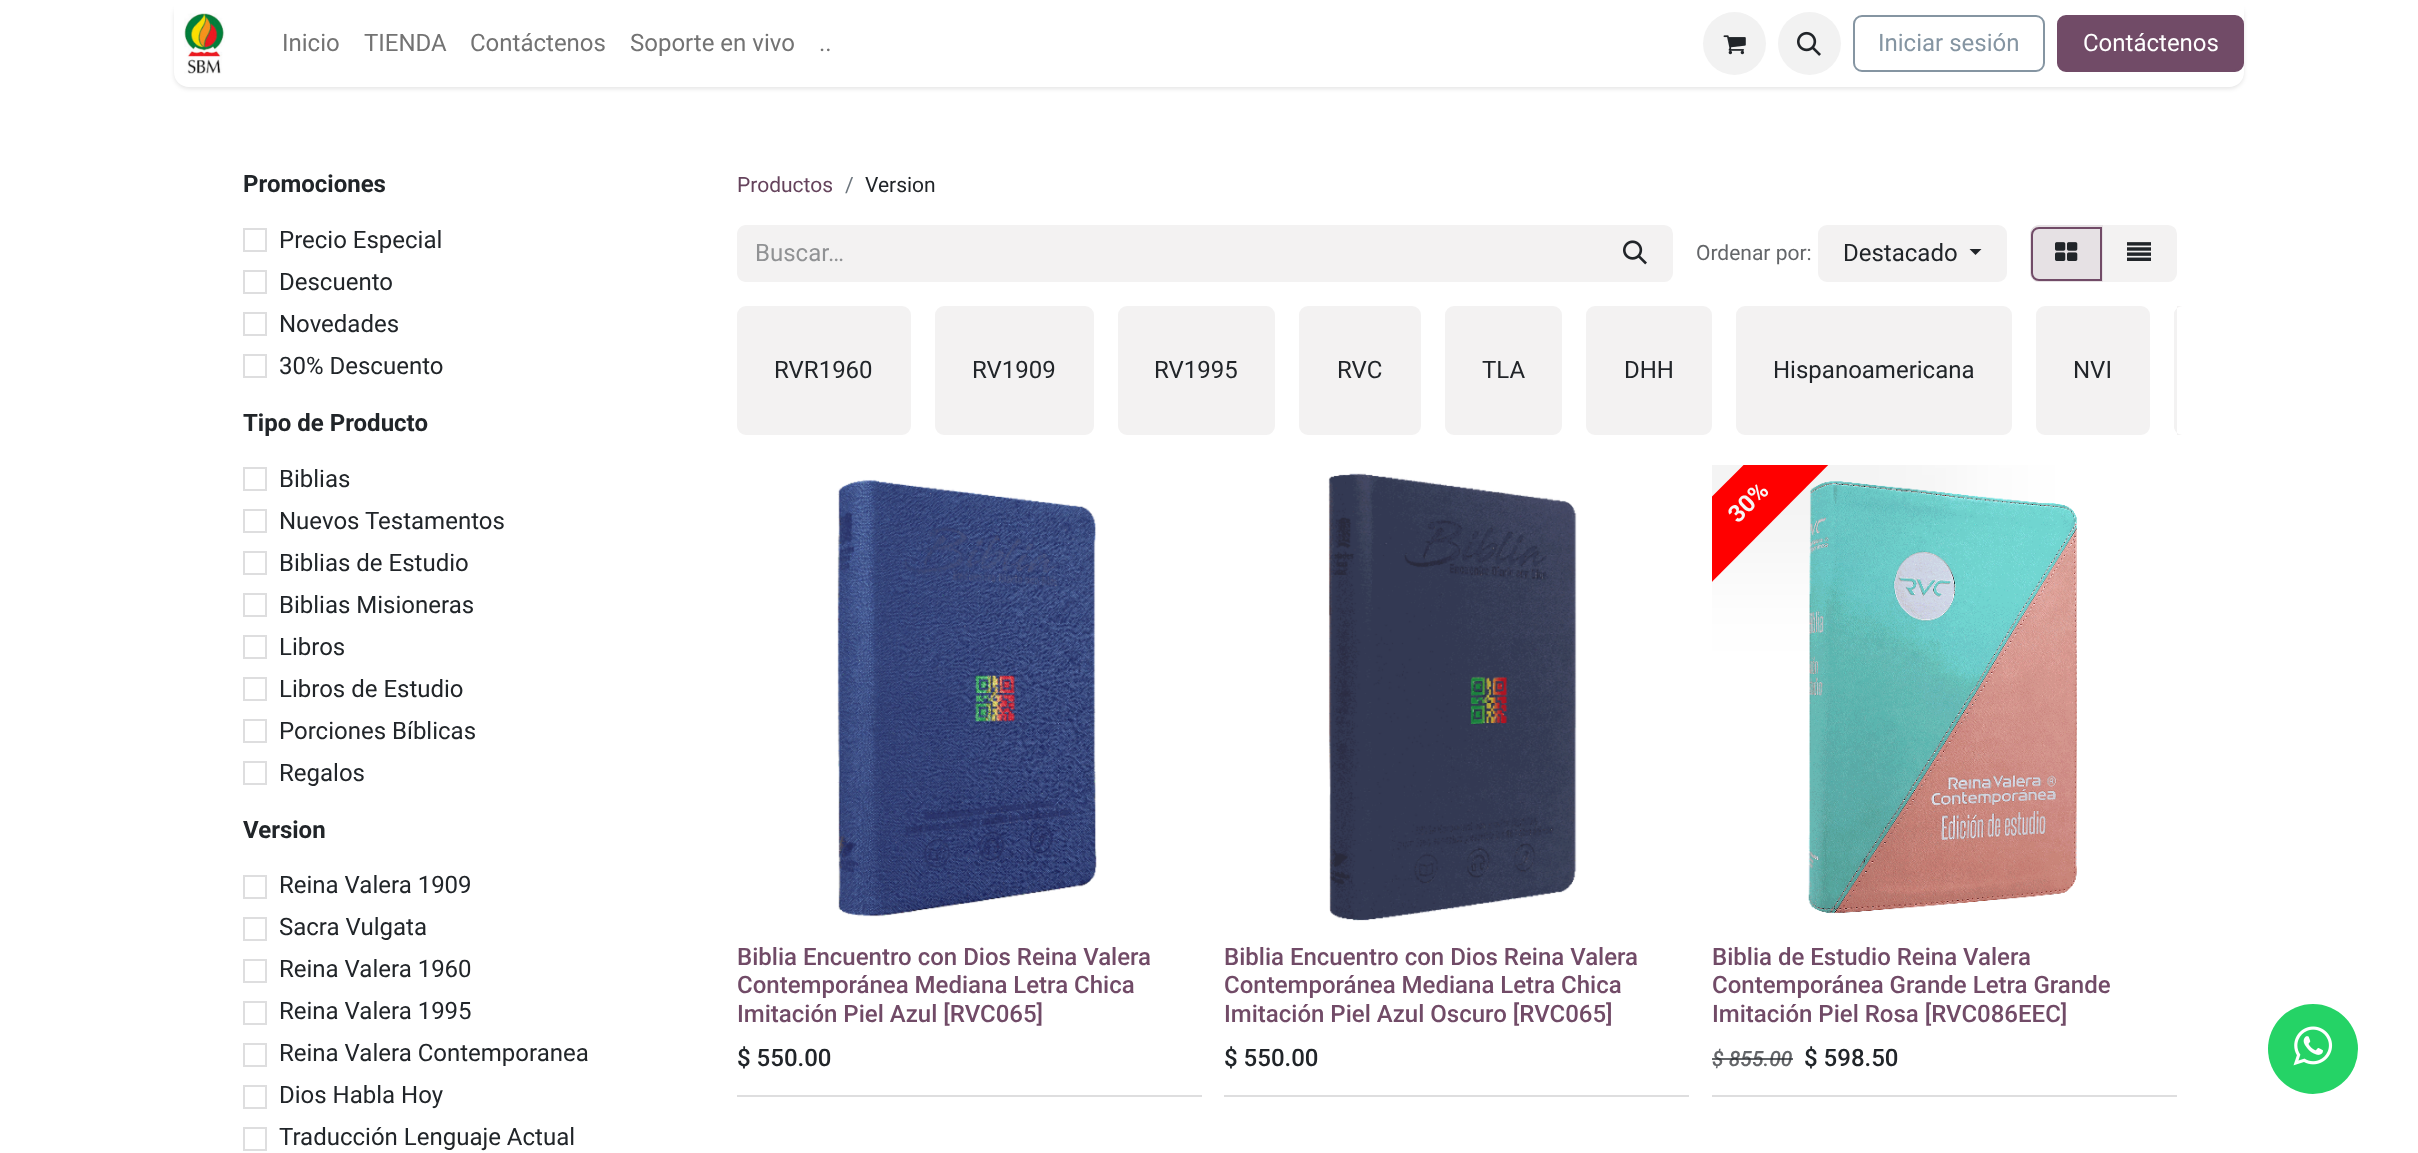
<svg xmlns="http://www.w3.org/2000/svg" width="2418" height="1153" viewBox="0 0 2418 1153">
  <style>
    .t1 { font: 24px Roboto; fill: #737373; }
    .t2 { font: 24px Roboto; fill: #8595a2; }
    .t3 { font: 24px Roboto; fill: #fff; }
    .t4 { font: bold 24px Roboto; fill: #212529; }
    .t5 { font: 24px Roboto; fill: #212529; }
    .t6 { font: 21px Roboto; fill: #65435c; }
    .t7 { font: 21px Roboto; fill: #6c757d; }
    .t8 { font: 21px Roboto; fill: #212529; }
    .t9 { font: 24px Roboto; fill: #909294; }
    .t10 { font: 21px Roboto; fill: #646669; }
    .t11 { font: 500 24px Roboto; fill: #714b67; }
    .t12 { font: 500 24px Roboto; fill: #212529; }
    .t13 { font: bold 24px Roboto; fill: #f6f6f6; }
    .t14 { font: italic 500 21px Roboto; fill: #646669; }
  </style>
  <defs>
    <clipPath id="clip1"><rect x="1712" y="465" width="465" height="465"/></clipPath>
    <clipPath id="clip2"><rect x="737" y="306" width="1440" height="135"/></clipPath>
    <clipPath id="clip3"><rect x="1712" y="465" width="465" height="465"/></clipPath>
  </defs>
  <rect width="100%" height="100%" fill="#fff"/>
  <rect x="174" y="2" width="2070" height="87" rx="15" fill="#0000001a" filter="blur(2px)"/>
  <path d="M174 0H2244V72C2244 80.5 2237.5 87 2229 87H189C180.5 87 174 80.5 174 72Z" fill="#fff"/>
  <image x="184" y="13" width="41" height="61" href="images/1.png"/>
  <text x="282" y="51" class="t1">Inicio</text>
  <text x="364" y="51" class="t1">TIENDA</text>
  <text x="470" y="51" class="t1">Contáctenos</text>
  <text x="630" y="51" class="t1">Soporte en vivo</text>
  <text x="819" y="51" class="t1">..</text>
  <circle cx="1734.5" cy="43.5" r="31.5" fill="#f2f2f2"/>
  <image x="1723" y="35" width="23" height="20" href="images/2.png"/>
  <circle cx="1809.5" cy="43.5" r="31.5" fill="#f2f2f2"/>
  <image x="1797" y="31" width="24" height="25" href="images/3.png"/>
  <rect x="1854" y="16" width="190" height="55" rx="8" fill="none" stroke="#8595a2" stroke-width="2"/>
  <text x="1878" y="51" class="t2">Iniciar sesión</text>
  <rect x="2058" y="16" width="185" height="55" rx="8" fill="#714b67" stroke="#714b67" stroke-width="2"/>
  <text x="2083" y="51" class="t3">Contáctenos</text>
  <text x="243" y="192" class="t4">Promociones</text>
  <rect x="244" y="229" width="22" height="22" fill="none" stroke="#dededf" stroke-width="2"/>
  <text x="279" y="248" class="t5">Precio Especial</text>
  <rect x="244" y="271" width="22" height="22" fill="none" stroke="#dededf" stroke-width="2"/>
  <text x="279" y="290" class="t5">Descuento</text>
  <rect x="244" y="313" width="22" height="22" fill="none" stroke="#dededf" stroke-width="2"/>
  <text x="279" y="332" class="t5">Novedades</text>
  <rect x="244" y="355" width="22" height="22" fill="none" stroke="#dededf" stroke-width="2"/>
  <text x="279" y="374" class="t5">30% Descuento</text>
  <text x="243" y="431" class="t4">Tipo de Producto</text>
  <rect x="244" y="468" width="22" height="22" fill="none" stroke="#dededf" stroke-width="2"/>
  <text x="279" y="487" class="t5">Biblias</text>
  <rect x="244" y="510" width="22" height="22" fill="none" stroke="#dededf" stroke-width="2"/>
  <text x="279" y="529" class="t5">Nuevos Testamentos</text>
  <rect x="244" y="552" width="22" height="22" fill="none" stroke="#dededf" stroke-width="2"/>
  <text x="279" y="571" class="t5">Biblias de Estudio</text>
  <rect x="244" y="594" width="22" height="22" fill="none" stroke="#dededf" stroke-width="2"/>
  <text x="279" y="613" class="t5">Biblias Misioneras</text>
  <rect x="244" y="636" width="22" height="22" fill="none" stroke="#dededf" stroke-width="2"/>
  <text x="279" y="655" class="t5">Libros</text>
  <rect x="244" y="678" width="22" height="22" fill="none" stroke="#dededf" stroke-width="2"/>
  <text x="279" y="697" class="t5">Libros de Estudio</text>
  <rect x="244" y="720" width="22" height="22" fill="none" stroke="#dededf" stroke-width="2"/>
  <text x="279" y="739" class="t5">Porciones Bíblicas</text>
  <rect x="244" y="762" width="22" height="22" fill="none" stroke="#dededf" stroke-width="2"/>
  <text x="279" y="781" class="t5">Regalos</text>
  <text x="243" y="838" class="t4">Version</text>
  <rect x="244" y="876" width="22" height="22" fill="none" stroke="#dededf" stroke-width="2"/>
  <text x="279" y="893" class="t5">Reina Valera 1909</text>
  <rect x="244" y="918" width="22" height="22" fill="none" stroke="#dededf" stroke-width="2"/>
  <text x="279" y="935" class="t5">Sacra Vulgata</text>
  <rect x="244" y="960" width="22" height="22" fill="none" stroke="#dededf" stroke-width="2"/>
  <text x="279" y="977" class="t5">Reina Valera 1960</text>
  <rect x="244" y="1002" width="22" height="22" fill="none" stroke="#dededf" stroke-width="2"/>
  <text x="279" y="1019" class="t5">Reina Valera 1995</text>
  <rect x="244" y="1044" width="22" height="22" fill="none" stroke="#dededf" stroke-width="2"/>
  <text x="279" y="1061" class="t5">Reina Valera Contemporanea</text>
  <rect x="244" y="1086" width="22" height="22" fill="none" stroke="#dededf" stroke-width="2"/>
  <text x="279" y="1103" class="t5">Dios Habla Hoy</text>
  <rect x="244" y="1128" width="22" height="22" fill="none" stroke="#dededf" stroke-width="2"/>
  <text x="279" y="1145" class="t5">Traducción Lenguaje Actual</text>
  <text x="737" y="192" class="t6">Productos</text>
  <text x="845" y="192" class="t7">/</text>
  <text x="865" y="192" class="t8">Version</text>
  <path d="M746 225H1599V282H746C741 282 737 278 737 273V234C737 229 741 225 746 225Z" fill="#f3f2f2"/>
  <text x="755" y="261" class="t9">Buscar…</text>
  <rect x="1819" y="226" width="187" height="55" rx="8" fill="#f3f2f2" stroke="#f3f2f2" stroke-width="2"/>
  <path d="M1969.5 249H1981.5L1975.5 255Z" fill="#212529"/>
  <path d="M2103 226H2168C2172.5 226 2176 229.5 2176 234V273C2176 277.5 2172.5 281 2168 281H2103Z" fill="#f3f2f2" stroke="#f3f2f2" stroke-width="2"/>
  <rect x="1300" y="307" width="120" height="127" rx="8" fill="#f3f2f2" stroke="#f3f2f2" stroke-width="2"/>
  <rect x="1446" y="307" width="115" height="127" rx="8" fill="#f3f2f2" stroke="#f3f2f2" stroke-width="2"/>
  <rect x="1587" y="307" width="124" height="127" rx="8" fill="#f3f2f2" stroke="#f3f2f2" stroke-width="2"/>
  <rect x="1737" y="307" width="274" height="127" rx="8" fill="#f3f2f2" stroke="#f3f2f2" stroke-width="2"/>
  <rect x="2037" y="307" width="112" height="127" rx="8" fill="#f3f2f2" stroke="#f3f2f2" stroke-width="2"/>
  <image x="1328" y="473" width="249" height="448" href="images/8.png"/>
  <image x="1808" y="481" width="269" height="433" href="images/9.png"/>
  <g clip-path="url(#clip1)">
    <rect x="1532" y="413" width="435" height="150" fill="#0000000d" filter="blur(52.5px)"/>
  </g>
  <path d="M1599 226H1664C1668.5 226 1672 229.5 1672 234V273C1672 277.5 1668.5 281 1664 281H1599Z" fill="#f3f2f2" stroke="#f3f2f2" stroke-width="2"/>
  <image x="1623" y="240" width="24" height="25" href="images/4.png"/>
  <text x="1696" y="260" class="t10">Ordenar por:</text>
  <text x="1843" y="261" class="t5">Destacado</text>
  <path d="M2039 225H2103V282H2039C2034 282 2030 278 2030 273V234C2030 229 2034 225 2039 225Z" fill="#e6e1e4"/>
  <path d="M2039 228H2101V280H2039C2035 280 2032 277 2032 273V235C2032 231 2035 228 2039 228Z" fill="none" stroke="#714b67" stroke-width="2"/>
  <image x="2055" y="242" width="23" height="19" href="images/5.png"/>
  <image x="2127" y="242" width="24" height="19" href="images/6.png"/>
  <rect x="738" y="307" width="172" height="127" rx="8" fill="#f3f2f2" stroke="#f3f2f2" stroke-width="2"/>
  <text x="774" y="378" class="t5">RVR1960</text>
  <rect x="936" y="307" width="157" height="127" rx="8" fill="#f3f2f2" stroke="#f3f2f2" stroke-width="2"/>
  <text x="972" y="378" class="t5">RV1909</text>
  <rect x="1119" y="307" width="155" height="127" rx="8" fill="#f3f2f2" stroke="#f3f2f2" stroke-width="2"/>
  <text x="1154" y="378" class="t5">RV1995</text>
  <text x="1337" y="378" class="t5">RVC</text>
  <text x="1482" y="378" class="t5">TLA</text>
  <text x="1624" y="378" class="t5">DHH</text>
  <text x="1773" y="378" class="t5">Hispanoamericana</text>
  <text x="2073" y="378" class="t5">NVI</text>
  <path d="M2183 306H2177V435H2183C2178 435 2174 431 2174 426V315C2174 310 2178 306 2183 306Z" fill="#f3f2f2"/>
  <g clip-path="url(#clip2)">
    <rect x="2175" y="307" width="140" height="127" rx="8" fill="none" stroke="#f3f2f2" stroke-width="2"/>
  </g>
  <rect x="737" y="1095" width="465" height="2" fill="#dededf"/>
  <image x="837" y="479" width="260" height="438" href="images/7.png"/>
  <text x="737" y="965" class="t11">Biblia Encuentro con Dios Reina Valera</text>
  <text x="737" y="993" class="t11">Contemporánea Mediana Letra Chica</text>
  <text x="737" y="1022" class="t11">Imitación Piel Azul [RVC065]</text>
  <text x="737" y="1066" class="t12">$ 550.00</text>
  <rect x="1224" y="1095" width="465" height="2" fill="#dededf"/>
  <text x="1224" y="965" class="t11">Biblia Encuentro con Dios Reina Valera</text>
  <text x="1224" y="993" class="t11">Contemporánea Mediana Letra Chica</text>
  <text x="1224" y="1022" class="t11">Imitación Piel Azul Oscuro [RVC065]</text>
  <text x="1224" y="1066" class="t12">$ 550.00</text>
  <rect x="1712" y="1095" width="465" height="2" fill="#dededf"/>
  <g clip-path="url(#clip3)">
    <path d="M1605 603L1850 359L1892 401L1648 646Z" fill="#f00"/>
  </g>
  <text x="1738" y="524" transform="rotate(-45 1738 524)" class="t13">30%</text>
  <text x="1712" y="965" class="t11">Biblia de Estudio Reina Valera</text>
  <text x="1712" y="993" class="t11">Contemporánea Grande Letra Grande</text>
  <text x="1712" y="1022" class="t11">Imitación Piel Rosa [RVC086EEC]</text>
  <text x="1712" y="1066" class="t14">$ 855.00</text>
  <rect x="1712" y="1058" width="16" height="2" fill="#212529b3"/>
  <rect x="1728" y="1058" width="65" height="2" fill="#212529b3"/>
  <text x="1804" y="1066" class="t12">$ 598.50</text>
  <circle cx="2313" cy="1049" r="45" fill="#25d366"/>
  <image x="2293" y="1026" width="40" height="40" href="images/10.png"/>
</svg>
